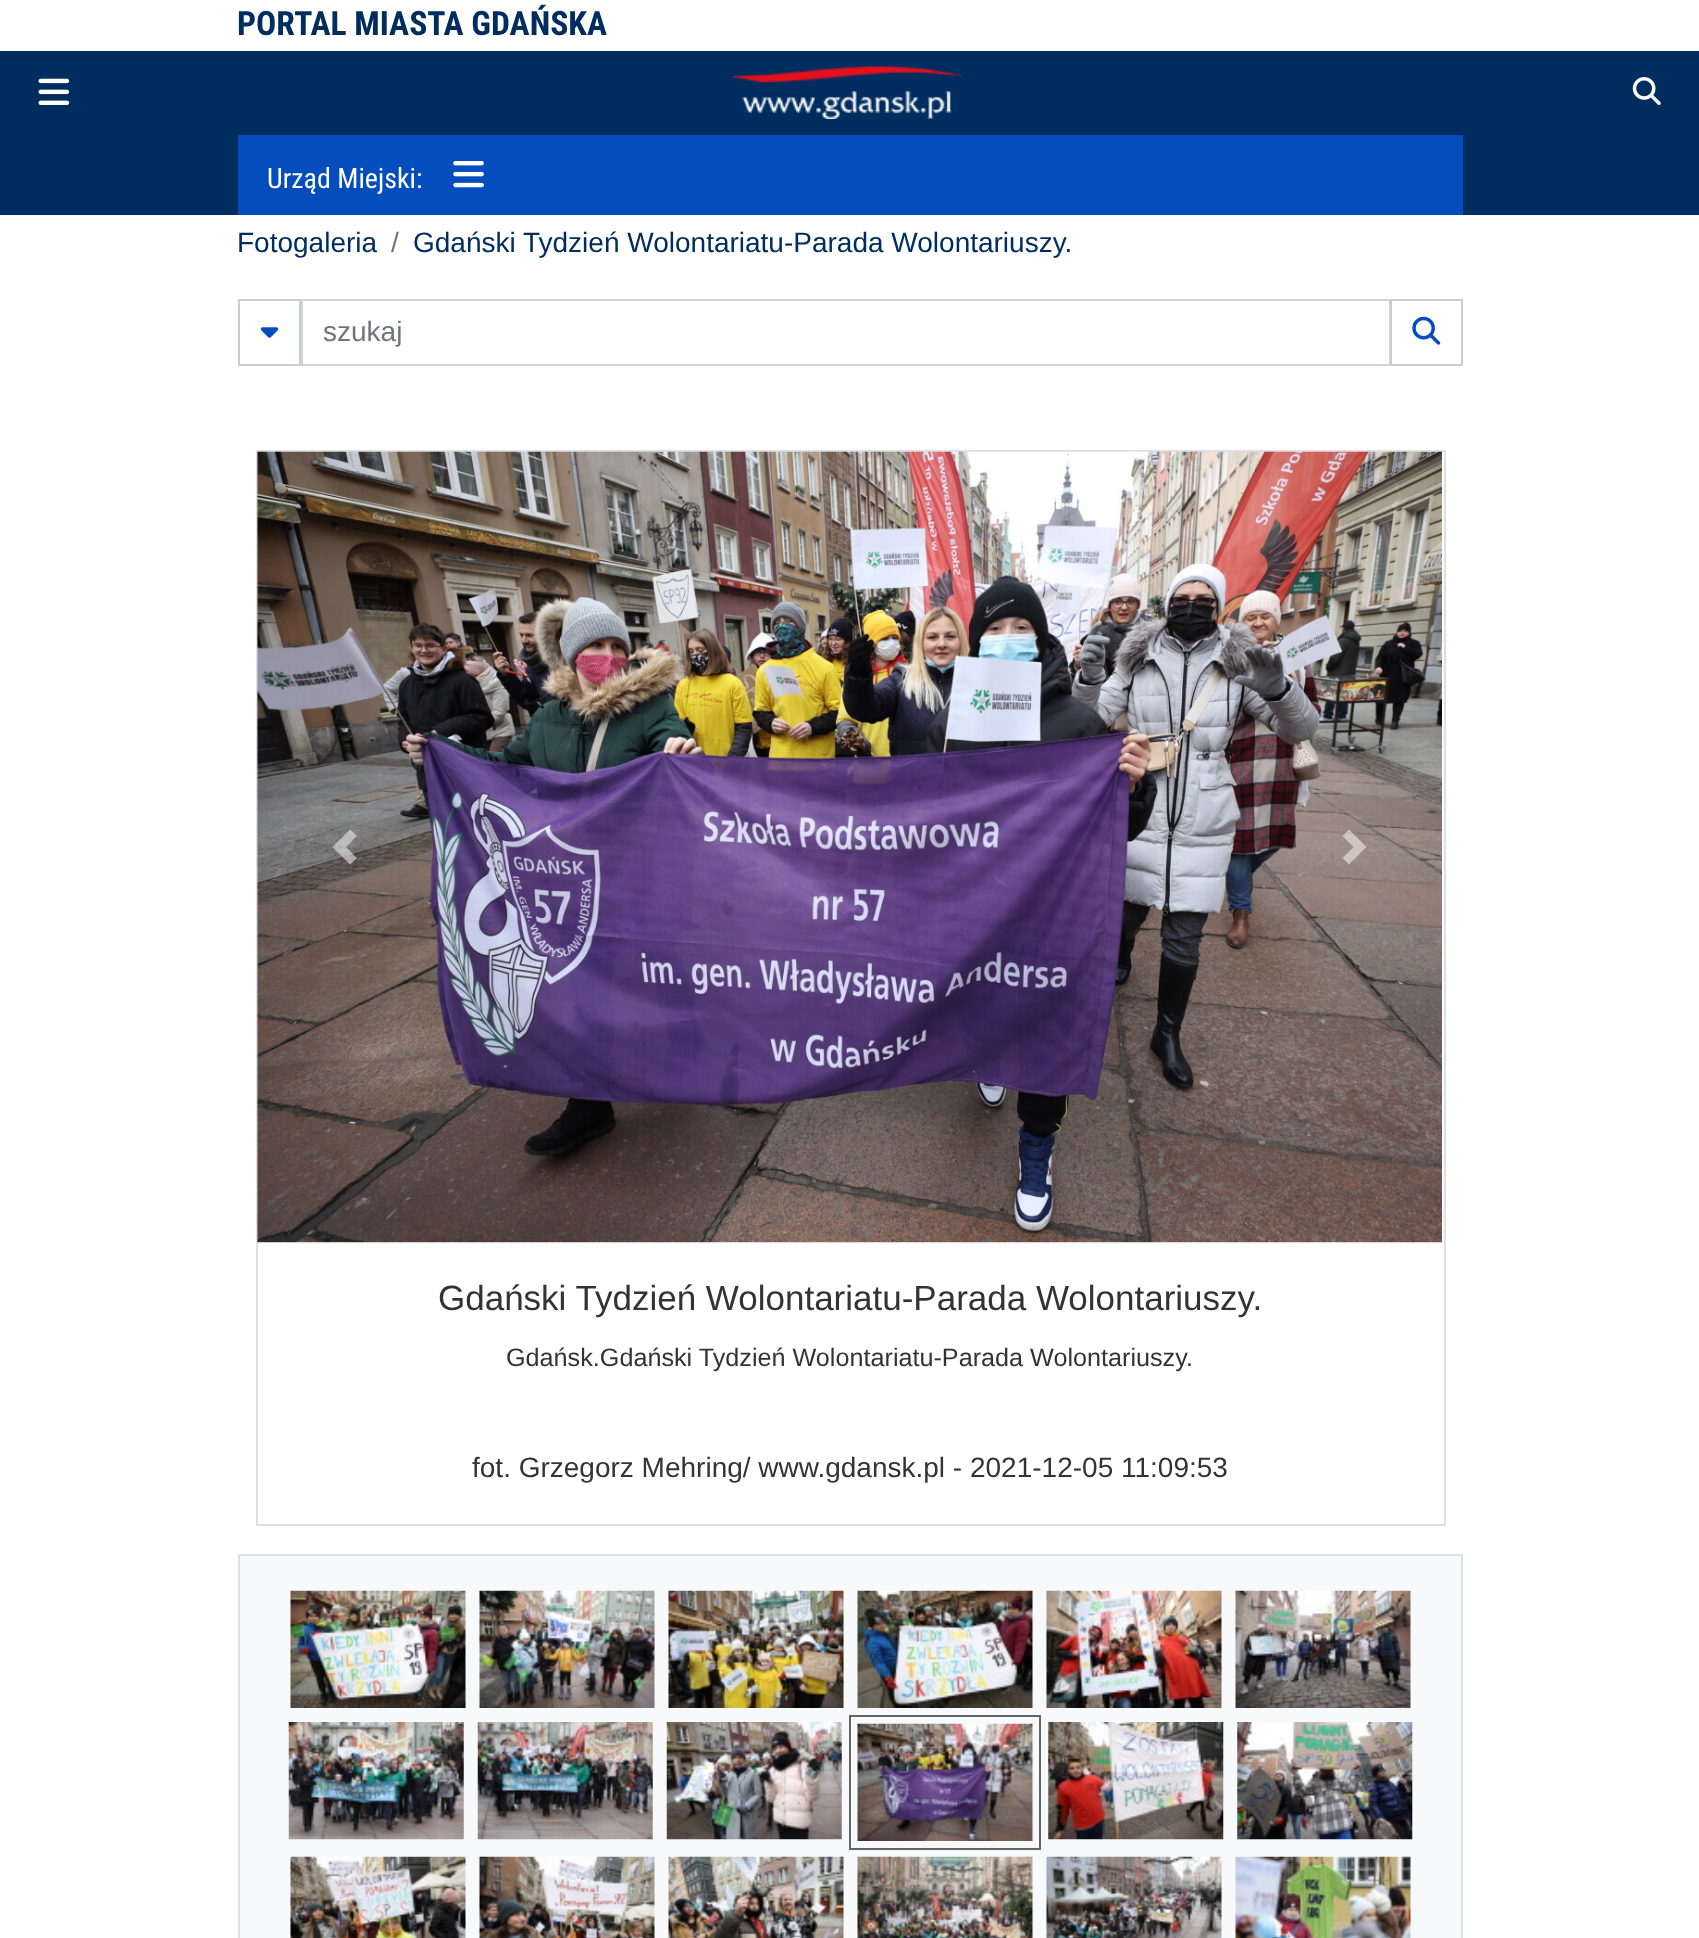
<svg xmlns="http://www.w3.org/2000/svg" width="1699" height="1938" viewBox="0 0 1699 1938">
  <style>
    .t1 { font: bold 33.6px Roboto Condensed; fill: #002d60; }
    .t2 { font: 28px Roboto Condensed; fill: #fff; }
    .t3 { font: 28px Liberation Sans; fill: #002d60; }
    .t4 { font: 28px Liberation Sans; fill: #6c757d; }
    .t5 { font: 35px Liberation Sans; fill: #333; }
    .t6 { font: 25.2px Liberation Sans; fill: #333; }
    .t7 { font: 28px Liberation Sans; fill: #333; }
  </style>
  <rect width="100%" height="100%" fill="#fff"/>
  <text x="237" y="35" class="t1">PORTAL MIASTA GDAŃSKA</text>
  <rect x="0" y="51" width="1699" height="164" fill="#002d60"/>
  <image x="38" y="78" width="32" height="27" href="images/1.png"/>
  <image x="731" y="66" width="232" height="53" href="images/2.png"/>
  <image x="1632" y="77" width="29" height="28" href="images/3.png"/>
  <rect x="238" y="135" width="1225" height="80" fill="#034ebc"/>
  <text x="267" y="188" class="t2">Urząd Miejski:</text>
  <image x="453" y="161" width="31" height="27" href="images/4.png"/>
  <text x="237" y="252" class="t3">Fotogaleria</text>
  <text x="391" y="252" class="t4">/</text>
  <text x="413" y="252" class="t3">Gdański Tydzień Wolontariatu-Parada Wolontariuszy.</text>
  <rect x="239" y="300" width="61" height="65" fill="none" stroke="#ccc" stroke-width="2"/>
  <image x="260" y="327" width="19" height="11" href="images/5.png"/>
  <rect x="302" y="300" width="1088" height="65" fill="none" stroke="#ced4da" stroke-width="2"/>
  <text x="323" y="341" class="t4">szukaj</text>
  <rect x="1391" y="300" width="71" height="65" fill="none" stroke="#ccc" stroke-width="2"/>
  <image x="1412" y="316" width="29" height="29" href="images/6.png"/>
  <rect x="257" y="451" width="1188" height="1074" fill="none" stroke="#dfdfdf" stroke-width="2"/>
  <image x="257" y="451" width="1185" height="792" href="images/7.png"/>
  <path d="M350 829.5L332.5 847L350 864.5L357 858L346 847L357 836Z" fill="#ffffff80"/>
  <path d="M1349 829.5L1342.5 836L1353.5 847L1342.5 858L1349 864.5L1366.5 847Z" fill="#ffffff80"/>
  <text x="438" y="1310" class="t5">Gdański Tydzień Wolontariatu-Parada Wolontariuszy.</text>
  <text x="506" y="1366" class="t6">Gdańsk.Gdański Tydzień Wolontariatu-Parada Wolontariuszy.</text>
  <text x="472" y="1477" class="t7">fot. Grzegorz Mehring/ www.gdansk.pl - 2021-12-05 11:09:53</text>
  <rect x="239" y="1555" width="1223" height="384" fill="#f8f9fa" stroke="#dee2e6" stroke-width="2"/>
  <image x="290" y="1590" width="176" height="118" href="images/8.png"/>
  <image x="479" y="1590" width="176" height="118" href="images/9.png"/>
  <image x="668" y="1590" width="176" height="118" href="images/10.png"/>
  <image x="857" y="1590" width="176" height="118" href="images/11.png"/>
  <image x="1046" y="1590" width="176" height="118" href="images/12.png"/>
  <image x="1235" y="1590" width="176" height="118" href="images/13.png"/>
  <image x="288" y="1722" width="176" height="118" href="images/14.png"/>
  <image x="477" y="1722" width="176" height="118" href="images/15.png"/>
  <image x="666" y="1722" width="176" height="118" href="images/16.png"/>
  <rect x="850" y="1716" width="190" height="133" fill="none" stroke="#646464" stroke-width="2"/>
  <image x="857" y="1723" width="176" height="118" href="images/17.png"/>
  <image x="1048" y="1722" width="176" height="118" href="images/18.png"/>
  <image x="1237" y="1722" width="176" height="118" href="images/19.png"/>
  <image x="290" y="1856" width="176" height="82" href="images/20.png"/>
  <image x="479" y="1856" width="176" height="82" href="images/21.png"/>
  <image x="668" y="1856" width="176" height="82" href="images/22.png"/>
  <image x="857" y="1856" width="176" height="82" href="images/23.png"/>
  <image x="1046" y="1856" width="176" height="82" href="images/24.png"/>
  <image x="1235" y="1856" width="176" height="82" href="images/25.png"/>
</svg>
